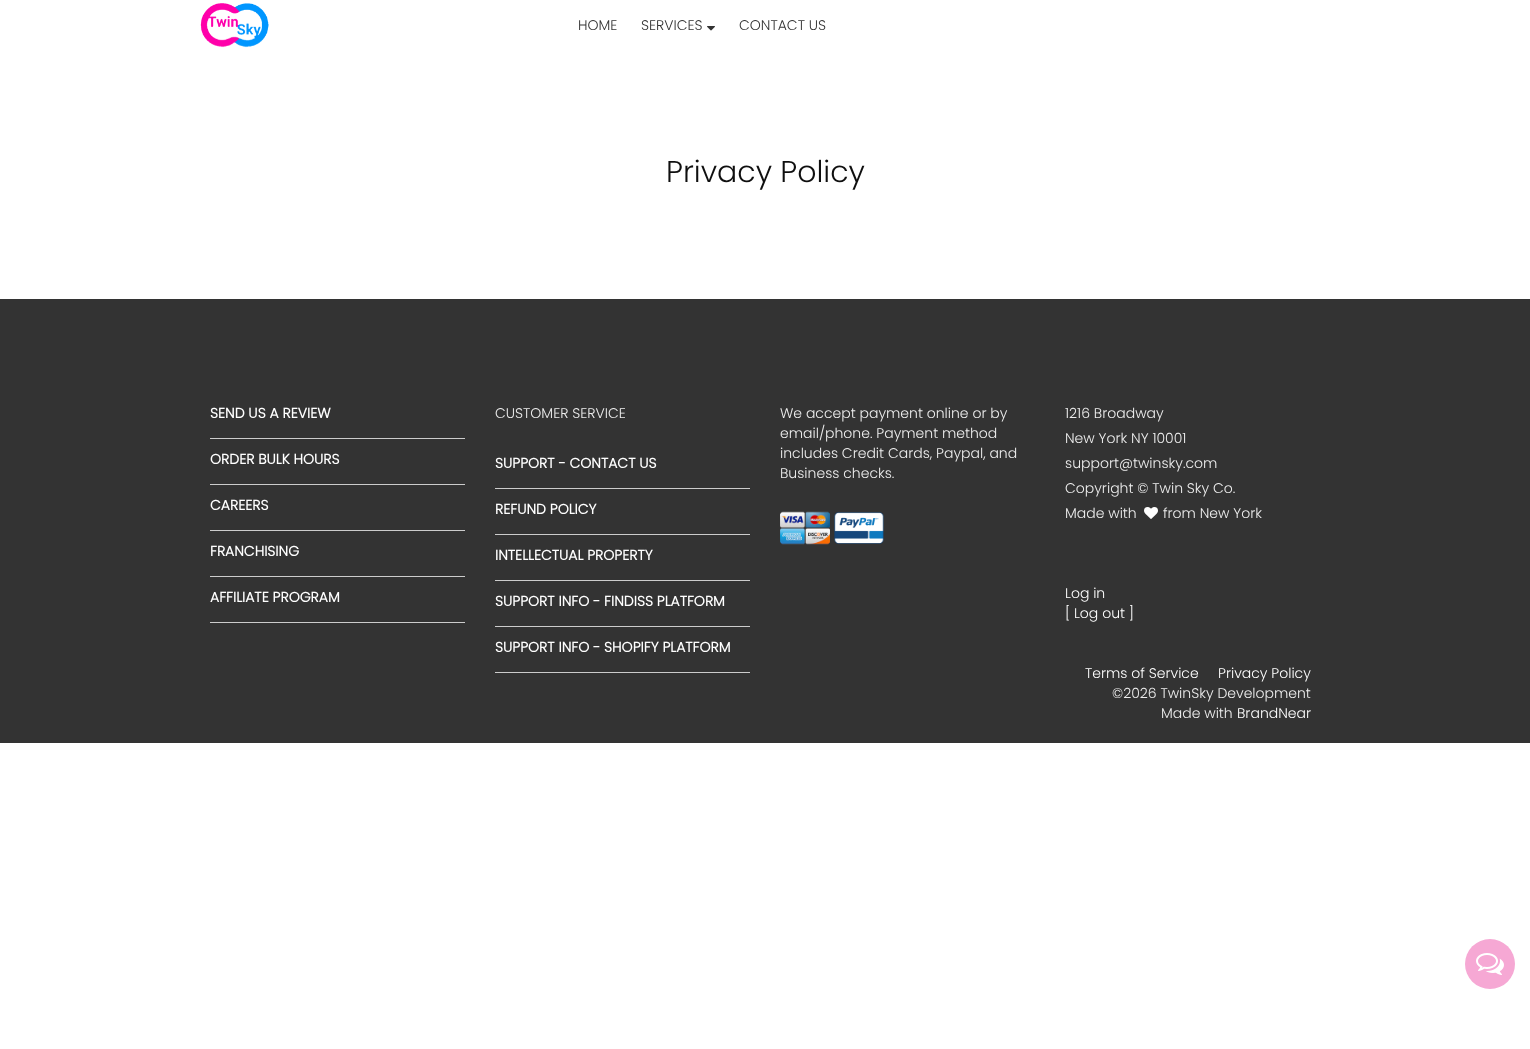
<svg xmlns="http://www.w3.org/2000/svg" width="1530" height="1049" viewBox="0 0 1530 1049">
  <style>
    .t1 { font: 300 14px Poppins; fill: #333; }
    .t2 { font: 300 30px Poppins; fill: #0f0f0f; }
    .t3 { font: bold 14px Poppins; fill: #fff; }
    .t4 { font: 300 14px Poppins; fill: #eee; }
    .t5 { font: 300 14px Poppins; fill: #fff; }
  </style>
  <rect width="100%" height="100%" fill="#fff"/>
  <image x="200" y="3" width="69" height="45" href="images/1.png"/>
  <text x="578" y="30" class="t1">HOME</text>
  <text x="641" y="30" class="t1">SERVICES</text>
  <image x="707" y="26" width="8" height="5" href="images/2.png"/>
  <text x="739" y="30" class="t1">CONTACT US</text>
  <text x="666" y="182" class="t2">Privacy Policy</text>
  <rect x="0" y="299" width="1530" height="444" fill="#333"/>
  <rect x="210" y="438" width="255" height="1" fill="#ccc"/>
  <text x="210" y="418" class="t3">SEND US A REVIEW</text>
  <rect x="210" y="484" width="255" height="1" fill="#ccc"/>
  <text x="210" y="464" class="t3">ORDER BULK HOURS</text>
  <rect x="210" y="530" width="255" height="1" fill="#ccc"/>
  <text x="210" y="510" class="t3">CAREERS</text>
  <rect x="210" y="576" width="255" height="1" fill="#ccc"/>
  <text x="210" y="556" class="t3">FRANCHISING</text>
  <rect x="210" y="622" width="255" height="1" fill="#ccc"/>
  <text x="210" y="602" class="t3">AFFILIATE PROGRAM</text>
  <text x="495" y="418" class="t4">CUSTOMER SERVICE</text>
  <rect x="495" y="488" width="255" height="1" fill="#ccc"/>
  <text x="495" y="468" class="t3">SUPPORT - CONTACT US</text>
  <rect x="495" y="534" width="255" height="1" fill="#ccc"/>
  <text x="495" y="514" class="t3">REFUND POLICY</text>
  <rect x="495" y="580" width="255" height="1" fill="#ccc"/>
  <text x="495" y="560" class="t3">INTELLECTUAL PROPERTY</text>
  <rect x="495" y="626" width="255" height="1" fill="#ccc"/>
  <text x="495" y="606" class="t3">SUPPORT INFO - FINDISS PLATFORM</text>
  <rect x="495" y="672" width="255" height="1" fill="#ccc"/>
  <text x="495" y="652" class="t3">SUPPORT INFO - SHOPIFY PLATFORM</text>
  <text x="780" y="418" class="t4">We accept payment online or by</text>
  <text x="780" y="438" class="t4">email/phone. Payment method</text>
  <text x="780" y="458" class="t4">includes Credit Cards, Paypal, and</text>
  <text x="780" y="478" class="t4">Business checks.</text>
  <image x="780" y="511" width="50" height="34" href="images/3.png"/>
  <image x="834" y="512" width="50" height="32" href="images/4.png"/>
  <text x="1065" y="418" class="t4">1216 Broadway</text>
  <text x="1065" y="443" class="t4">New York NY 10001</text>
  <text x="1065" y="468" class="t4">support@twinsky.com</text>
  <text x="1065" y="493" class="t4">Copyright © Twin Sky Co.</text>
  <text x="1065" y="518" class="t4">Made with</text>
  <image x="1144" y="507" width="14" height="12" href="images/5.png"/>
  <text x="1163" y="518" class="t4">from New York</text>
  <text x="1065" y="598" class="t5">Log in</text>
  <text x="1065" y="618" class="t5">[ Log out ]</text>
  <text x="1085" y="678" class="t5">Terms of Service</text>
  <text x="1218" y="678" class="t5">Privacy Policy</text>
  <text x="1112" y="698" class="t4">©2026 TwinSky Development</text>
  <text x="1161" y="718" class="t4">Made with</text>
  <text x="1237" y="718" class="t5">BrandNear</text>
  <circle cx="1490" cy="964" r="25" fill="#f6a8d4"/>
  <image x="1476" y="953" width="28" height="22" href="images/6.png"/>
</svg>
